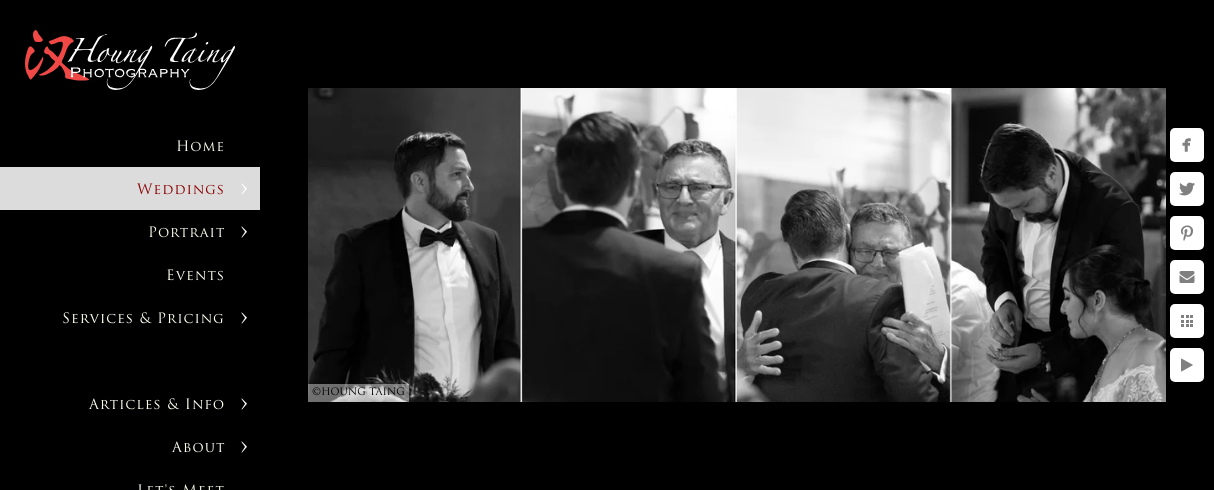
<svg xmlns="http://www.w3.org/2000/svg" width="1214" height="490" viewBox="0 0 1214 490">
  <rect width="100%" height="100%" fill="#000"/>
  <image x="25" y="30" width="210" height="60" href="images/1.png"/>
  <image x="177" y="140" width="47" height="12" href="images/2.png"/>
  <rect x="0" y="167" width="260" height="43" fill="#dcdcdc"/>
  <image x="137" y="183" width="86" height="12" href="images/3.png"/>
  <image x="241" y="183" width="6" height="12" href="images/4.png"/>
  <image x="149" y="226" width="75" height="12" href="images/5.png"/>
  <image x="241" y="226" width="6" height="12" href="images/6.png"/>
  <image x="167" y="269" width="56" height="12" href="images/7.png"/>
  <image x="63" y="312" width="160" height="12" href="images/8.png"/>
  <image x="241" y="312" width="6" height="12" href="images/6.png"/>
  <image x="88" y="398" width="136" height="12" href="images/9.png"/>
  <image x="241" y="398" width="6" height="12" href="images/6.png"/>
  <image x="171" y="441" width="54" height="12" href="images/10.png"/>
  <image x="241" y="441" width="6" height="12" href="images/6.png"/>
  <image x="138" y="484" width="86" height="6" href="images/11.png"/>
  <image x="308" y="88" width="858" height="314" href="images/12.png"/>
  <rect x="308" y="384" width="101" height="18" fill="#d3d3d380"/>
  <image x="312" y="387" width="93" height="9" href="images/13.png"/>
  <rect x="1170" y="128" width="34" height="34" rx="5" fill="#fff"/>
  <image x="1182" y="138" width="9" height="14" href="images/14.png"/>
  <rect x="1170" y="172" width="34" height="34" rx="5" fill="#fff"/>
  <image x="1179" y="182" width="16" height="14" href="images/15.png"/>
  <rect x="1170" y="216" width="34" height="34" rx="5" fill="#fff"/>
  <image x="1181" y="225" width="12" height="16" href="images/16.png"/>
  <rect x="1170" y="260" width="34" height="34" rx="5" fill="#fff"/>
  <image x="1179" y="271" width="16" height="12" href="images/17.png"/>
  <rect x="1170" y="304" width="34" height="34" rx="5" fill="#fff"/>
  <image x="1181" y="315" width="12" height="12" href="images/18.png"/>
  <rect x="1170" y="348" width="34" height="34" rx="5" fill="#fff"/>
  <image x="1181" y="358" width="12" height="14" href="images/19.png"/>
</svg>
